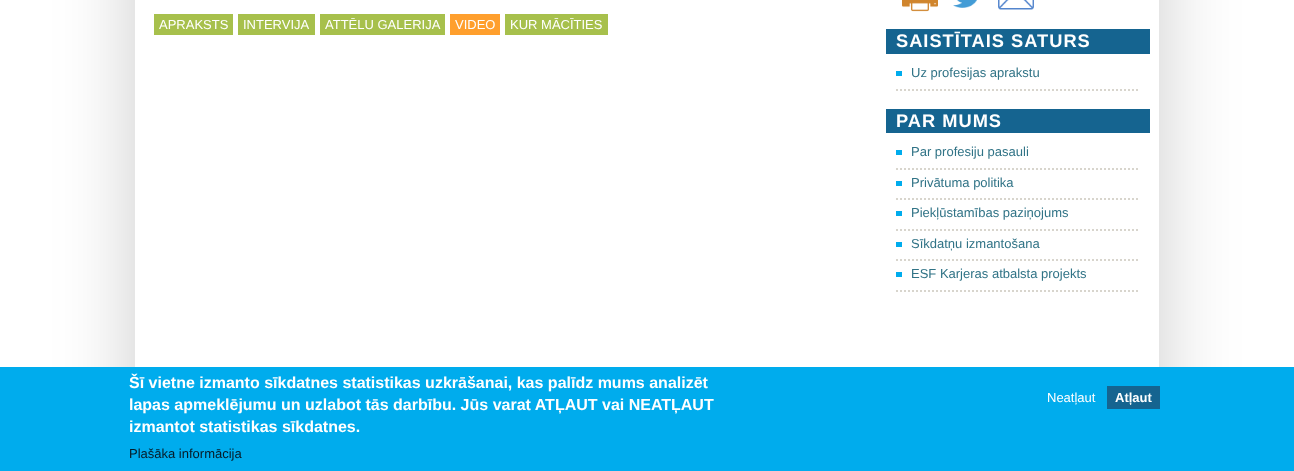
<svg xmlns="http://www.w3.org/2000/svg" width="1294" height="471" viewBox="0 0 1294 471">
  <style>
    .t1 { font: 13px Liberation Sans; fill: #fff; }
    .t2 { font: bold 18.25px Liberation Sans; letter-spacing: 1px; fill: #fff; }
    .t3 { font: 13px Liberation Sans; fill: #307386; }
    .t4 { font: bold 16px Liberation Sans; fill: #fff; }
    .t5 { font: 13px Liberation Sans; fill: #061b27; }
    .t6 { font: bold 13px Liberation Sans; fill: #fff; }
  </style>
  <defs>
    <clipPath id="clip1"><path d="M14 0H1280V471H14ZM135-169H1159V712H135Z" clip-rule="evenodd"/></clipPath>
  </defs>
  <rect width="100%" height="100%" fill="#fff"/>
  <g clip-path="url(#clip1)">
    <rect x="135" y="-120" width="1024" height="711" fill="#00000033" filter="blur(40px)"/>
  </g>
  <rect x="154" y="14" width="79" height="21" fill="#a7c04c"/>
  <text x="159" y="29" class="t1">APRAKSTS</text>
  <rect x="238" y="14" width="77" height="21" fill="#a7c04c"/>
  <text x="243" y="29" class="t1">INTERVIJA</text>
  <rect x="320" y="14" width="125" height="21" fill="#a7c04c"/>
  <text x="325" y="29" class="t1">ATTĒLU GALERIJA</text>
  <rect x="450" y="14" width="50" height="21" fill="#ff9f2d"/>
  <text x="455" y="29" class="t1">VIDEO</text>
  <rect x="505" y="14" width="103" height="21" fill="#a7c04c"/>
  <text x="510" y="29" class="t1">KUR MĀCĪTIES</text>
  <image x="902" y="0" width="36" height="12" href="images/1.png"/>
  <image x="953" y="0" width="24" height="8" href="images/2.png"/>
  <image x="998" y="0" width="36" height="10" href="images/3.png"/>
  <rect x="886" y="29" width="264" height="25" fill="#156490"/>
  <text x="896" y="47" class="t2">SAISTĪTAIS SATURS</text>
  <rect x="896" y="71" width="6" height="5" fill="#00aced"/>
  <path d="M896 90H1140" fill="none" stroke="#d8d5cd" stroke-width="2" stroke-dasharray="2 2"/>
  <text x="911" y="77" class="t3">Uz profesijas aprakstu</text>
  <rect x="886" y="109" width="264" height="24" fill="#156490"/>
  <text x="896" y="127" class="t2">PAR MUMS</text>
  <rect x="896" y="150" width="6" height="5" fill="#00aced"/>
  <path d="M896 169H1140" fill="none" stroke="#d8d5cd" stroke-width="2" stroke-dasharray="2 2"/>
  <text x="911" y="156" class="t3">Par profesiju pasauli</text>
  <rect x="896" y="181" width="6" height="5" fill="#00aced"/>
  <path d="M896 199H1140" fill="none" stroke="#d8d5cd" stroke-width="2" stroke-dasharray="2 2"/>
  <text x="911" y="187" class="t3">Privātuma politika</text>
  <rect x="896" y="211" width="6" height="5" fill="#00aced"/>
  <path d="M896 230H1140" fill="none" stroke="#d8d5cd" stroke-width="2" stroke-dasharray="2 2"/>
  <text x="911" y="217" class="t3">Piekļūstamības paziņojums</text>
  <rect x="896" y="242" width="6" height="5" fill="#00aced"/>
  <path d="M896 260H1140" fill="none" stroke="#d8d5cd" stroke-width="2" stroke-dasharray="2 2"/>
  <text x="911" y="248" class="t3">Sīkdatņu izmantošana</text>
  <rect x="896" y="272" width="6" height="5" fill="#00aced"/>
  <path d="M896 291H1140" fill="none" stroke="#d8d5cd" stroke-width="2" stroke-dasharray="2 2"/>
  <text x="911" y="278" class="t3">ESF Karjeras atbalsta projekts</text>
  <rect x="0" y="367" width="1294" height="104" fill="#00aced"/>
  <text x="129" y="388" class="t4">Šī vietne izmanto sīkdatnes statistikas uzkrāšanai, kas palīdz mums analizēt</text>
  <text x="129" y="410" class="t4">lapas apmeklējumu un uzlabot tās darbību. Jūs varat ATĻAUT vai NEATĻAUT</text>
  <text x="129" y="432" class="t4">izmantot statistikas sīkdatnes.</text>
  <text x="129" y="458" class="t5">Plašāka informācija</text>
  <text x="1047" y="402" class="t1">Neatļaut</text>
  <rect x="1107" y="386" width="53" height="23" fill="#156490"/>
  <text x="1115" y="402" class="t6">Atļaut</text>
</svg>
